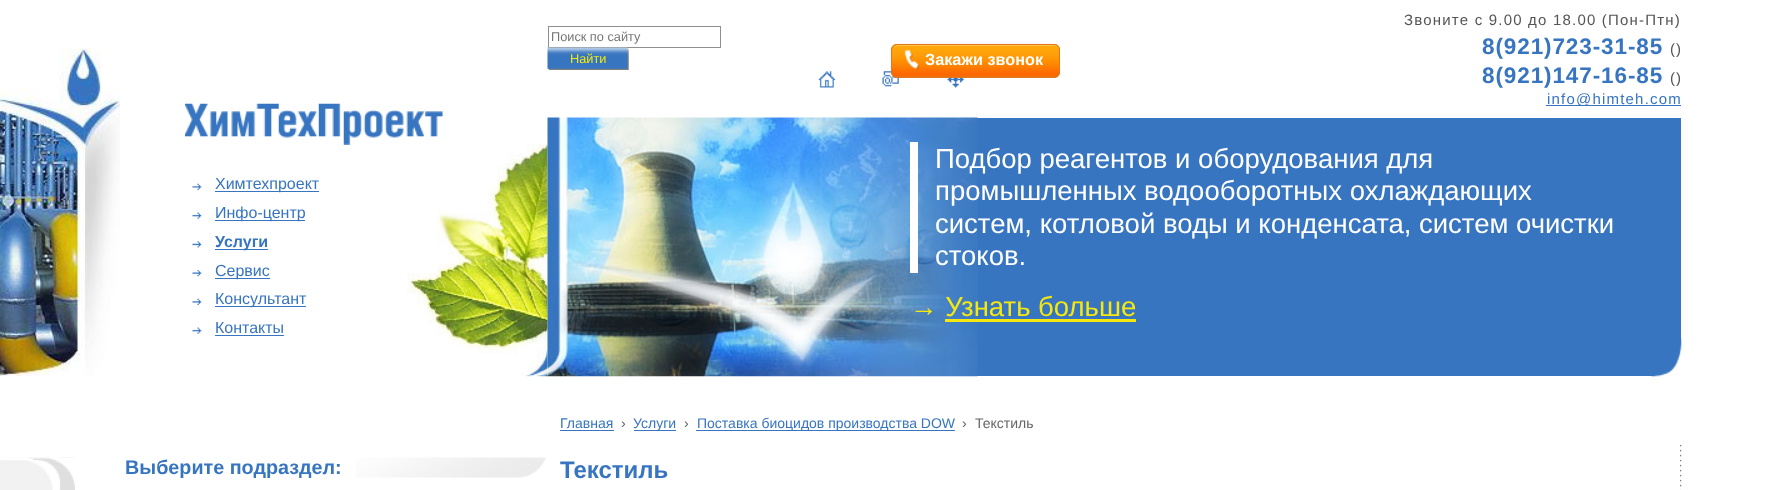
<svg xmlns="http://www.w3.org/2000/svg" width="1769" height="490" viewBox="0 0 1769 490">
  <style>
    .t1 { font: 16px Liberation Sans; fill: #3775c0; }
    .t2 { font: bold 16px Liberation Sans; fill: #3775c0; }
    .t3 { font: 12.75px Liberation Sans; fill: #757575; }
    .t4 { font: 12.75px Liberation Sans; fill: #f6e80e; }
    .t5 { font: bold 16.25px Liberation Sans; fill: #fff; }
    .t6 { font: 15px Liberation Sans; letter-spacing: 1.2px; fill: #555; }
    .t7 { font: bold 22.5px Liberation Sans; letter-spacing: 0.9px; fill: #3775c0; }
    .t8 { font: 15px Liberation Sans; letter-spacing: 1px; fill: #555; }
    .t9 { font: 15px Liberation Sans; letter-spacing: 1.2px; fill: #3775c0; }
    .t10 { font: 27.5px Liberation Sans; fill: #fff; }
    .t11 { font: 27.5px Liberation Sans; fill: #f6e80e; }
    .t12 { font: 14px Liberation Sans; fill: #3775c0; }
    .t13 { font: 14px Liberation Sans; fill: #666; }
    .t14 { font: bold 19.75px Liberation Sans; fill: #3775c0; }
    .t15 { font: bold 24px Liberation Sans; fill: #3775c0; }
  </style>
  <rect width="100%" height="100%" fill="#fff"/>
  <image x="0" y="48" width="120" height="329" href="images/1.png"/>
  <image x="407" y="143" width="141" height="234" href="images/2.png"/>
  <image x="185" y="103" width="258" height="42" href="images/3.png"/>
  <image x="192" y="183" width="10" height="7" href="images/4.png"/>
  <rect x="215" y="191" width="104" height="1" fill="#3775c0"/>
  <text x="215" y="189" class="t1">Химтехпроект</text>
  <image x="192" y="212" width="10" height="7" href="images/5.png"/>
  <rect x="215" y="220" width="90" height="1" fill="#3775c0"/>
  <text x="215" y="218" class="t1">Инфо-центр</text>
  <image x="192" y="241" width="10" height="7" href="images/6.png"/>
  <rect x="215" y="249" width="53" height="1" fill="#3775c0"/>
  <text x="215" y="247" class="t2">Услуги</text>
  <image x="192" y="269" width="10" height="8" href="images/7.png"/>
  <rect x="215" y="278" width="55" height="1" fill="#3775c0"/>
  <text x="215" y="276" class="t1">Сервис</text>
  <image x="192" y="298" width="10" height="7" href="images/8.png"/>
  <rect x="215" y="306" width="91" height="1" fill="#3775c0"/>
  <text x="215" y="304" class="t1">Консультант</text>
  <image x="192" y="327" width="10" height="7" href="images/5.png"/>
  <text x="215" y="333" class="t1">Контакты</text>
  <rect x="215" y="335" width="69" height="1" fill="#3775c0"/>
  <rect x="548.5" y="26.5" width="172" height="21" fill="none" stroke="#8f8f8f"/>
  <text x="551" y="41" class="t3">Поиск по сайту</text>
  <image x="547" y="47" width="82" height="23" href="images/9.png"/>
  <text x="570" y="63" class="t4">Найти</text>
  <image x="882" y="71" width="17" height="16" href="images/13.png"/>
  <rect x="891" y="44" width="169" height="34" rx="6" fill="#e2761a"/>
  <image x="891" y="43" width="169" height="34" href="images/10.png"/>
  <path d="M898 46H1054C1057 46 1059 48 1059 51V50C1059 47 1057 45 1054 45H898C896 45 894 46 894 48C895 47 896 46 898 46Z" fill="#ffc352"/>
  <rect x="891.5" y="44.5" width="168" height="33" rx="5.5" fill="none" stroke="#e2761a"/>
  <image x="904" y="50" width="16" height="20" href="images/11.png"/>
  <text x="925" y="65" class="t5">Закажи звонок</text>
  <text x="1404" y="25" class="t6">Звоните с 9.00 до 18.00 (Пон-Птн)</text>
  <text x="1482" y="54" class="t7">8(921)723-31-85</text>
  <text x="1670" y="54" class="t8">()</text>
  <text x="1482" y="83" class="t7">8(921)147-16-85</text>
  <text x="1670" y="83" class="t8">()</text>
  <rect x="1546" y="105" width="135" height="1" fill="#3775c0"/>
  <text x="1547" y="104" class="t9">info@himteh.com</text>
  <image x="818" y="71" width="17" height="17" href="images/12.png"/>
  <image x="947" y="78" width="17" height="10" href="images/14.png"/>
  <rect x="977" y="118" width="704" height="258" fill="#3775c0"/>
  <image x="547" y="117" width="431" height="260" href="images/15.png"/>
  <image x="1651" y="338" width="31" height="39" href="images/16.png"/>
  <rect x="910" y="142" width="8" height="131" fill="#fff"/>
  <text x="935" y="168" class="t10">Подбор реагентов и оборудования для</text>
  <text x="935" y="200" class="t10">промышленных водооборотных охлаждающих</text>
  <text x="935" y="233" class="t10">систем, котловой воды и конденсата, систем очистки</text>
  <text x="935" y="265" class="t10">стоков.</text>
  <text x="910" y="316" class="t11">→ Узнать больше</text>
  <rect x="945" y="319" width="191" height="3" fill="#f6e80e"/>
  <text x="560" y="428" class="t12">Главная</text>
  <rect x="560" y="430" width="54" height="1" fill="#3775c0"/>
  <text x="621" y="428" class="t13">›</text>
  <rect x="634" y="430" width="42" height="1" fill="#3775c0"/>
  <text x="633" y="428" class="t12">Услуги</text>
  <text x="684" y="428" class="t13">›</text>
  <rect x="696" y="430" width="259" height="1" fill="#3775c0"/>
  <text x="697" y="428" class="t12">Поставка биоцидов производства DOW</text>
  <text x="962" y="428" class="t13">›</text>
  <text x="975" y="428" class="t13">Текстиль</text>
  <image x="0" y="457" width="75" height="33" href="images/17.png"/>
  <image x="0" y="457" width="75" height="29" href="images/18.png"/>
  <image x="356" y="457" width="190" height="21" href="images/19.png"/>
  <text x="125" y="474" class="t14">Выберите подраздел:</text>
  <image x="1680" y="445" width="2" height="45" href="images/20.png"/>
  <text x="560" y="478" class="t15">Текстиль</text>
</svg>
